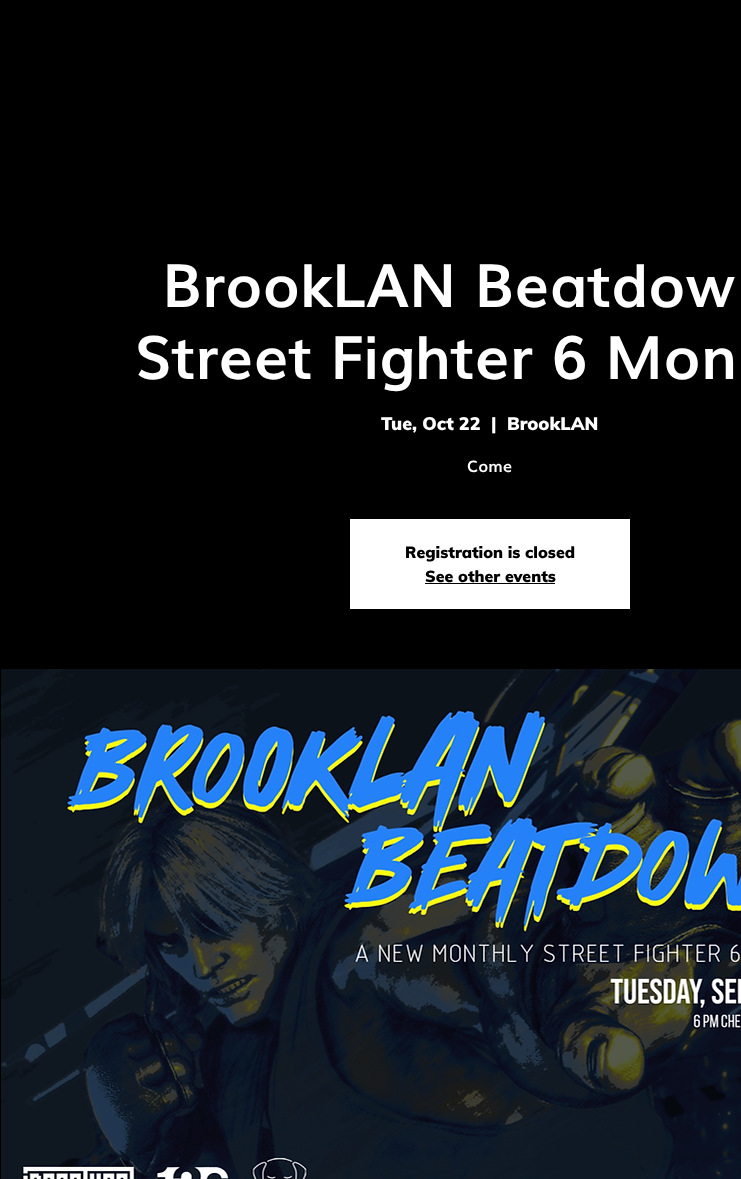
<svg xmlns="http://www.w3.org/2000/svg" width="741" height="1179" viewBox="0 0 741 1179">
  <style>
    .t1 { font: bold 60px Muli; fill: #fff; }
    .t2 { font: 900 18px Muli; fill: #fff; }
    .t3 { font: bold 16px Muli; fill: #fff; }
    .t4 { font: 900 16px Muli; fill: #000; }
  </style>
  <rect width="100%" height="100%" fill="#000"/>
  <text x="162" y="307" class="t1">BrookLAN Beatdow</text>
  <text x="135" y="379" class="t1">Street Fighter 6 Mon</text>
  <text x="381" y="430" class="t2">Tue, Oct 22</text>
  <text x="491" y="430" class="t2">|</text>
  <text x="507" y="430" class="t2">BrookLAN</text>
  <text x="467" y="472" class="t3">Come</text>
  <rect x="350" y="519" width="280" height="90" fill="#fff"/>
  <text x="405" y="558" class="t4">Registration is closed</text>
  <text x="425" y="582" class="t4">See other events</text>
  <rect x="425" y="583" width="130" height="1" fill="#000"/>
  <image x="1" y="669" width="740" height="510" href="images/1.png"/>
</svg>
